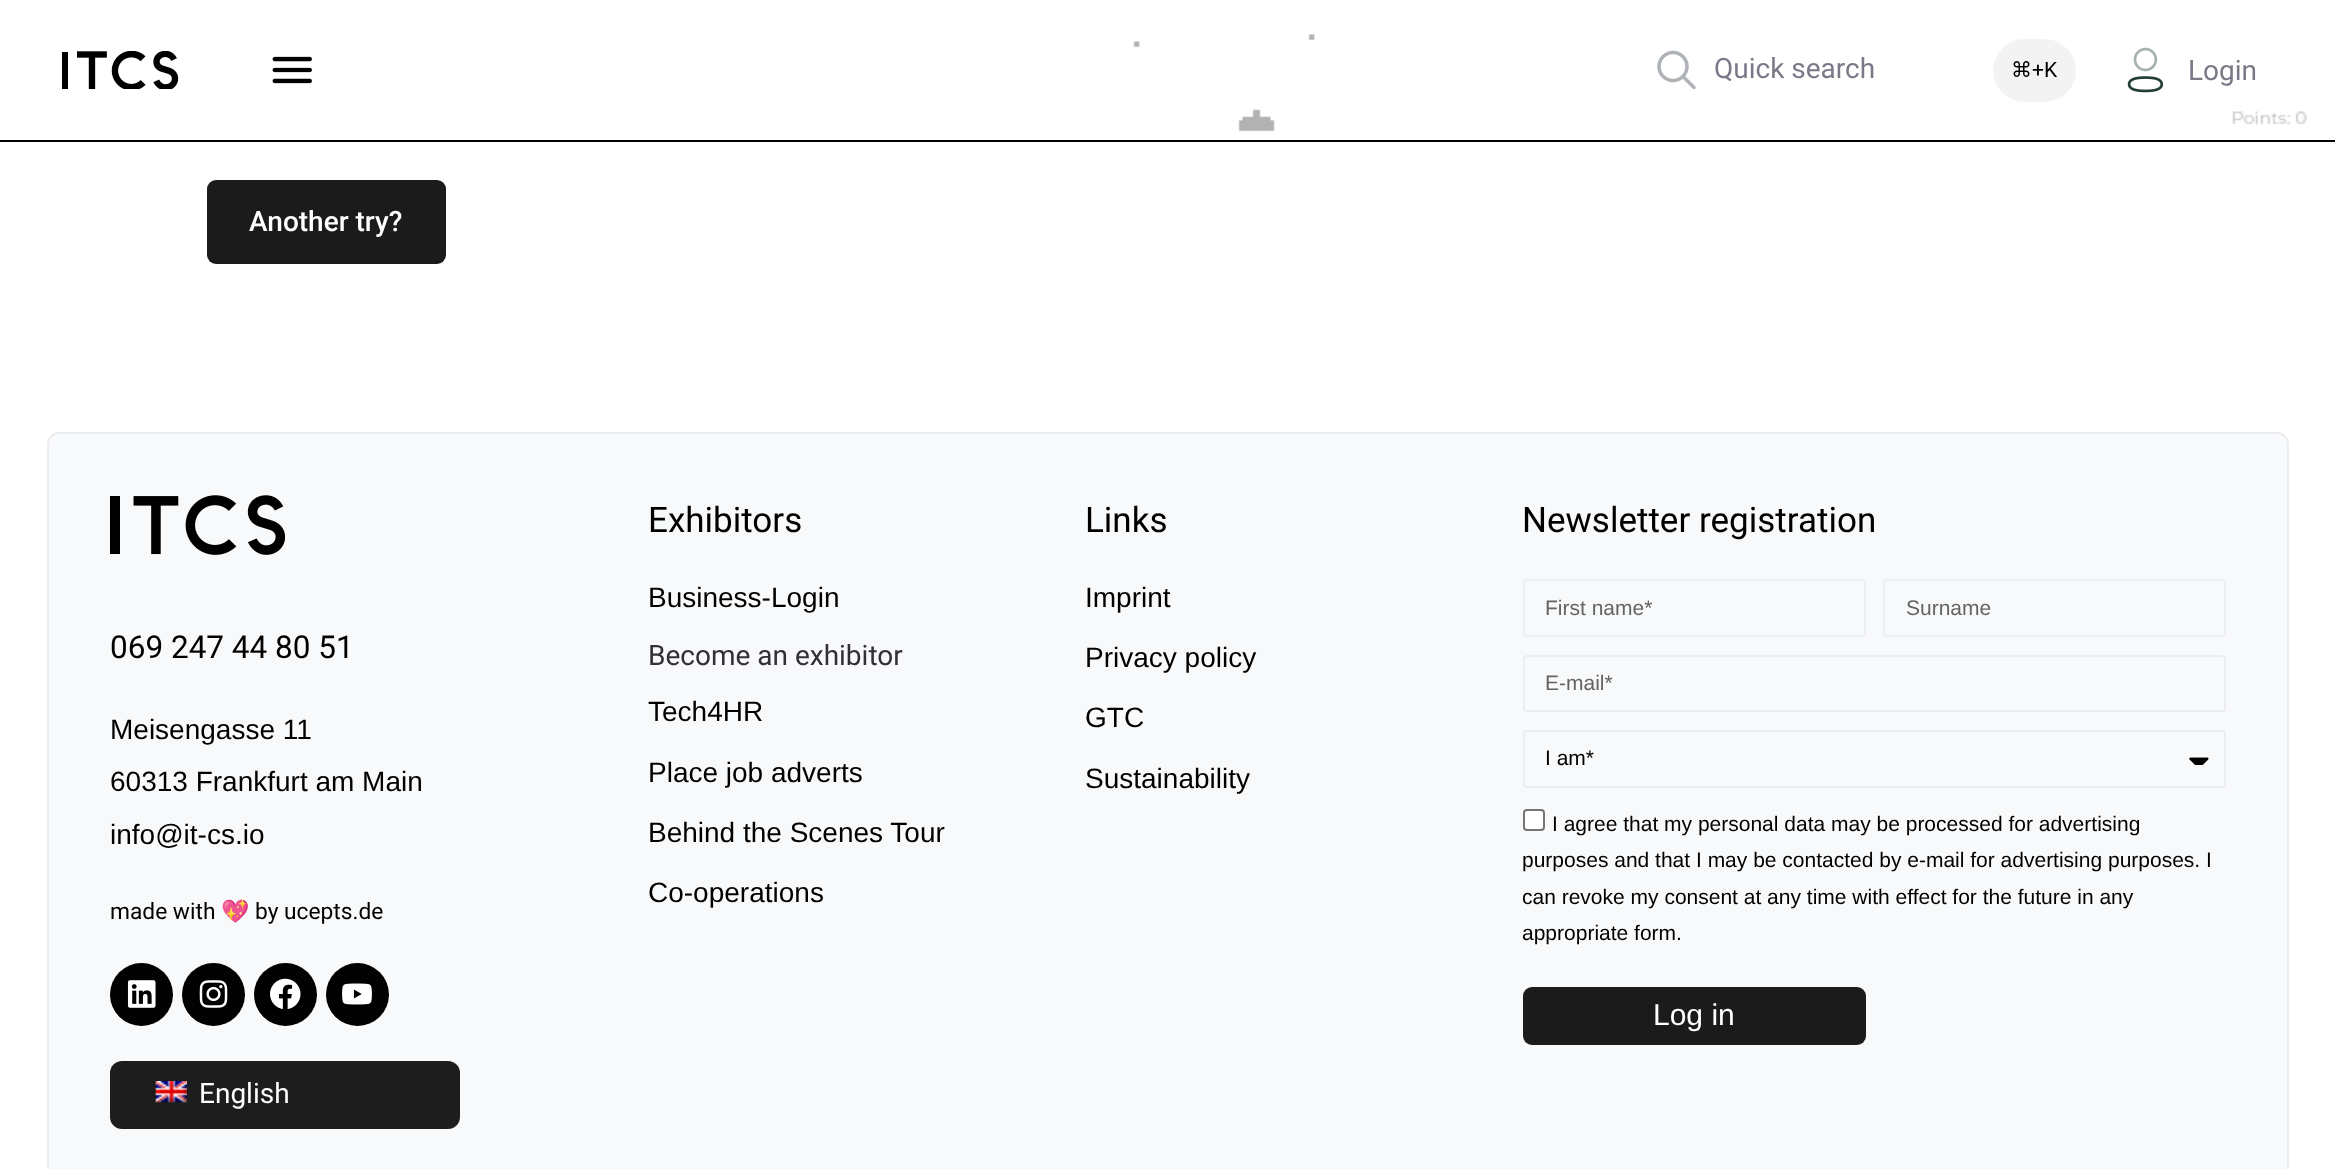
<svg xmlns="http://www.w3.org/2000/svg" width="2335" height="1169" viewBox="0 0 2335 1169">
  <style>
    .t1 { font: 28px Roboto; fill: #797a88; }
    .t2 { font: 21px DejaVu Sans; fill: #000; }
    .t3 { font: 21px Roboto; fill: #000; }
    .t4 { font: 500 28px Roboto; fill: #fff; }
    .t5 { font: 31.5px Roboto; fill: #000; }
    .t6 { font: 28px Liberation Sans; fill: #000; }
    .t7 { font: 22.75px Roboto; fill: #000; }
    .t8 { font: 22.75px Noto Color Emoji; fill: #000; }
    .t9 { font: 28px Roboto; fill: #fff; }
    .t10 { font: 35px Roboto; fill: #000; }
    .t11 { font: 28px Roboto; fill: #313135; }
    .t12 { font: 21px Liberation Sans; fill: #636464; }
    .t13 { font: 21px Liberation Sans; fill: #000; }
    .t14 { font: 30px Liberation Sans; fill: #fff; }
  </style>
  <rect width="100%" height="100%" fill="#fff"/>
  <rect x="0" y="140" width="2335" height="2" fill="#000"/>
  <image x="62" y="51" width="117" height="38" href="images/1.png"/>
  <image x="272" y="56" width="40" height="28" href="images/2.png"/>
  <image x="1133" y="34" width="1174" height="98" href="images/5.png"/>
  <image x="1657" y="50" width="39" height="40" href="images/3.png"/>
  <text x="1714" y="78" class="t1">Quick search</text>
  <rect x="1993" y="39" width="83" height="63" rx="31.5" fill="#f3f3f3"/>
  <text x="2011" y="77" class="t2">⌘</text>
  <text x="2032" y="77" class="t3">+K</text>
  <image x="2127" y="47" width="37" height="46" href="images/4.png"/>
  <text x="2188" y="80" class="t1">Login</text>
  <rect x="207" y="180" width="239" height="84" rx="9" fill="#1b1b1b"/>
  <text x="249" y="231" class="t4">Another try?</text>
  <rect x="48" y="433" width="2240" height="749" rx="11" fill="#f8f9fa" stroke="#ecedf0" stroke-width="2"/>
  <image x="110" y="495" width="175" height="60" href="images/6.png"/>
  <text x="110" y="658" class="t5">069 247 44 80 51</text>
  <text x="110" y="739" class="t6">Meisengasse 11</text>
  <text x="110" y="791" class="t6">60313 Frankfurt am Main</text>
  <text x="110" y="844" class="t6">info@it-cs.io</text>
  <text x="110" y="919" class="t7">made with</text>
  <text x="221" y="919" class="t8">💖</text>
  <text x="255" y="919" class="t7">by ucepts.de</text>
  <circle cx="141.5" cy="994.5" r="31.5" fill="#020101"/>
  <image x="127" y="980" width="29" height="28" href="images/7.png"/>
  <circle cx="213.5" cy="994.5" r="31.5" fill="#020101"/>
  <image x="199" y="980" width="29" height="28" href="images/8.png"/>
  <circle cx="285.5" cy="994.5" r="31.5" fill="#020101"/>
  <image x="270" y="978" width="31" height="31" href="images/9.png"/>
  <circle cx="357.5" cy="994.5" r="31.5" fill="#020101"/>
  <image x="342" y="983" width="30" height="22" href="images/10.png"/>
  <rect x="110" y="1061" width="350" height="68" rx="12" fill="#1d1d1d"/>
  <image x="155" y="1081" width="32" height="22" href="images/11.png"/>
  <text x="199" y="1103" class="t9">English</text>
  <text x="648" y="532" class="t10">Exhibitors</text>
  <text x="648" y="607" class="t6">Business-Login</text>
  <text x="648" y="665" class="t11">Become an exhibitor</text>
  <text x="648" y="721" class="t6">Tech4HR</text>
  <text x="648" y="782" class="t6">Place job adverts</text>
  <text x="648" y="842" class="t6">Behind the Scenes Tour</text>
  <text x="648" y="902" class="t6">Co-operations</text>
  <text x="1085" y="532" class="t10">Links</text>
  <text x="1085" y="607" class="t6">Imprint</text>
  <text x="1085" y="667" class="t6">Privacy policy</text>
  <text x="1085" y="727" class="t6">GTC</text>
  <text x="1085" y="788" class="t6">Sustainability</text>
  <text x="1522" y="532" class="t10">Newsletter registration</text>
  <rect x="1524" y="580" width="341" height="56" rx="3" fill="none" stroke="#ecedf0" stroke-width="2"/>
  <text x="1545" y="615" class="t12">First name*</text>
  <rect x="1884" y="580" width="341" height="56" rx="3" fill="none" stroke="#ecedf0" stroke-width="2"/>
  <text x="1906" y="615" class="t12">Surname</text>
  <rect x="1524" y="656" width="701" height="55" rx="3" fill="none" stroke="#ecedf0" stroke-width="2"/>
  <text x="1545" y="690" class="t12">E-mail*</text>
  <rect x="1524" y="731" width="701" height="56" rx="3" fill="none" stroke="#ecedf0" stroke-width="2"/>
  <text x="1545" y="765" class="t13">I am*</text>
  <image x="2189" y="757" width="20" height="8" href="images/12.png"/>
  <rect x="1524" y="810" width="20" height="20" rx="3" fill="#fff" stroke="#767676" stroke-width="2"/>
  <text x="1552" y="831" class="t13">I agree that my personal data may be processed for advertising</text>
  <text x="1522" y="867" class="t13">purposes and that I may be contacted by e-mail for advertising purposes. I</text>
  <text x="1522" y="904" class="t13">can revoke my consent at any time with effect for the future in any</text>
  <text x="1522" y="940" class="t13">appropriate form.</text>
  <rect x="1523" y="987" width="343" height="58" rx="9" fill="#1b1b1b"/>
  <text x="1653" y="1025" class="t14">Log in</text>
</svg>
